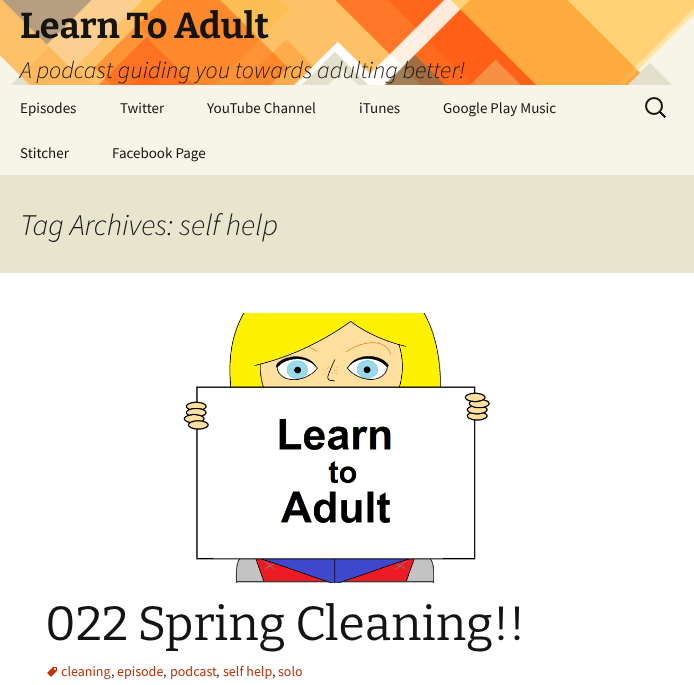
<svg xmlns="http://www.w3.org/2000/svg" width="694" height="685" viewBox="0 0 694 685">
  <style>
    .t1 { font: bold 36px Bitter; fill: #141412; }
    .t2 { font: italic 300 24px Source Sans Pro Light; fill: #141412; }
    .t3 { font: 15px Source Sans Pro; fill: #141412; }
    .t4 { font: italic 300 30px Source Sans Pro Light; fill: #141412; }
    .t5 { font: 48px Bitter; fill: #141412; }
    .t6 { font: 14px Source Sans Pro; fill: #bc360a; }
    .t7 { font: 14px Source Sans Pro; fill: #141412; }
  </style>
  <rect width="100%" height="100%" fill="#fff"/>
  <image x="0" y="0" width="694" height="85" href="images/1.png"/>
  <text x="20" y="38" class="t1">Learn To Adult</text>
  <text x="20" y="78" class="t2">A podcast guiding you towards adulting better!</text>
  <rect x="0" y="85" width="694" height="90" fill="#f7f5e7"/>
  <text x="20" y="113" class="t3">Episodes</text>
  <text x="120" y="113" class="t3">Twitter</text>
  <text x="207" y="113" class="t3">YouTube Channel</text>
  <text x="359" y="113" class="t3">iTunes</text>
  <text x="443" y="113" class="t3">Google Play Music</text>
  <text x="20" y="158" class="t3">Stitcher</text>
  <text x="112" y="158" class="t3">Facebook Page</text>
  <image x="645" y="97" width="21" height="21" href="images/2.png"/>
  <rect x="0" y="175" width="694" height="98" fill="#e8e5ce"/>
  <text x="20" y="235" class="t4">Tag Archives: self help</text>
  <image x="183" y="313" width="307" height="270" href="images/3.png"/>
  <text x="45" y="640" class="t5">022 Spring Cleaning!!</text>
  <image x="47" y="667" width="10" height="10" href="images/4.png"/>
  <text x="61" y="676" class="t6">cleaning</text>
  <text x="111" y="676" class="t7">,</text>
  <text x="117" y="676" class="t6">episode</text>
  <text x="163" y="676" class="t7">,</text>
  <text x="170" y="676" class="t6">podcast</text>
  <text x="216" y="676" class="t7">,</text>
  <text x="223" y="676" class="t6">self help</text>
  <text x="272" y="676" class="t7">,</text>
  <text x="278" y="676" class="t6">solo</text>
</svg>
